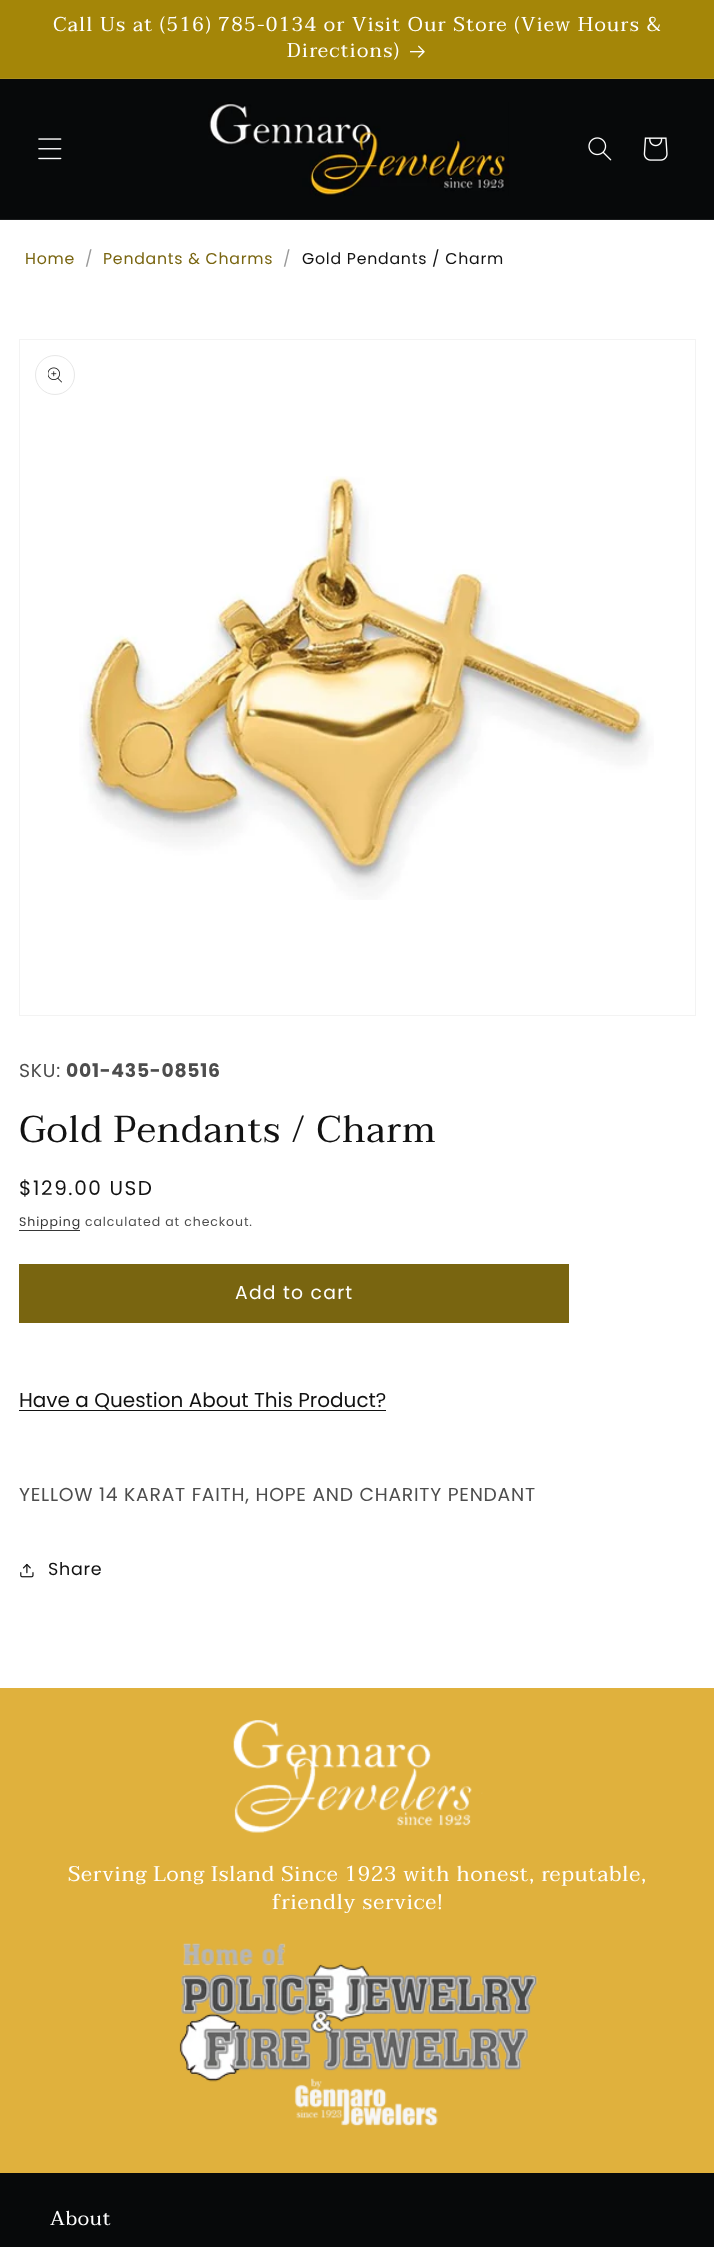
<svg xmlns="http://www.w3.org/2000/svg" width="714" height="2247" viewBox="0 0 714 2247">
  <style>
    .t1 { font: 20px Taviraj; letter-spacing: 1.25px; fill: #fff; }
    .t2 { font: 15.75px Poppins; letter-spacing: 0.75px; fill: #796510; }
    .t3 { font: 15.75px Poppins; letter-spacing: 0.75px; fill: #999; }
    .t4 { font: 15.75px Poppins; letter-spacing: 0.75px; fill: #121212; }
    .t5 { font: 18.75px Poppins; letter-spacing: 0.75px; fill: #4d4d4d; }
    .t6 { font: bold 18.75px Poppins; letter-spacing: 0.75px; fill: #4d4d4d; }
    .t7 { font: 37.5px Taviraj; letter-spacing: 0.75px; fill: #121212; }
    .t8 { font: 20px Poppins; letter-spacing: 1.6px; fill: #121212; }
    .t9 { font: 12.5px Poppins; letter-spacing: 0.9px; fill: #363636; }
    .t10 { font: 12.5px Poppins; letter-spacing: 0.9px; fill: #4d4d4d; }
    .t11 { font: 18.75px Poppins; letter-spacing: 1.25px; fill: #fff; }
    .t12 { font: 20px Poppins; fill: #121212; }
    .t13 { font: 17.5px Poppins; letter-spacing: 0.75px; fill: #121212; }
    .t14 { font: 21.25px Taviraj; letter-spacing: 0.75px; fill: #fff; }
    .t15 { font: 20px Taviraj; letter-spacing: 0.75px; fill: #fff; }
  </style>
  <defs>
    <linearGradient id="g1" gradientUnits="userSpaceOnUse" x1="357" y1="0" x2="358" y2="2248"><stop offset="0.47" stop-color="#a48608"/><stop offset="0.72" stop-color="#e0b13d"/></linearGradient>
  </defs>
  <rect width="100%" height="100%" fill="#fff"/>
  <rect x="0" y="0" width="714" height="78" fill="url(#g1)"/>
  <rect x="0" y="78" width="714" height="1" fill="#ab901c"/>
  <text x="53" y="31" class="t1">Call Us at (516) 785-0134 or Visit Our Store (View Hours &amp;</text>
  <text x="287" y="57" class="t1">Directions)</text>
  <image x="410" y="45" width="15" height="13" href="images/1.png"/>
  <rect x="0" y="79" width="714" height="140" fill="#07090a"/>
  <rect x="0" y="219" width="714" height="1" fill="#1b1d1e"/>
  <image x="38" y="138" width="24" height="22" href="images/2.png"/>
  <image x="208" y="102" width="301" height="94" href="images/3.png"/>
  <image x="588" y="137" width="24" height="24" href="images/4.png"/>
  <image x="643" y="137" width="25" height="24" href="images/5.png"/>
  <text x="25" y="264" class="t2">Home</text>
  <text x="85" y="264" class="t3">/</text>
  <text x="103" y="264" class="t2">Pendants &amp; Charms</text>
  <text x="283" y="264" class="t3">/</text>
  <text x="302" y="264" class="t4">Gold Pendants / Charm</text>
  <rect x="19.5" y="339.5" width="676" height="676" fill="none" stroke="#f3f3f3"/>
  <circle cx="55" cy="375" r="19.5" fill="none" stroke="#e7e7e7"/>
  <image x="48" y="367" width="14" height="16" href="images/6.png"/>
  <image x="79" y="476" width="575" height="424" href="images/7.png"/>
  <text x="19" y="1077" class="t5">SKU:</text>
  <text x="66" y="1077" class="t6">001-435-08516</text>
  <text x="19" y="1142" class="t7">Gold Pendants / Charm</text>
  <text x="19" y="1195" class="t8">$129.00 USD</text>
  <text x="19" y="1226" class="t9">Shipping</text>
  <rect x="19" y="1230" width="61" height="1" fill="#363636"/>
  <text x="85" y="1226" class="t10">calculated at checkout.</text>
  <rect x="19" y="1264" width="550" height="59" fill="#796510"/>
  <text x="235" y="1299" class="t11">Add to cart</text>
  <text x="19" y="1407" class="t12">Have a Question About This Product?</text>
  <rect x="19" y="1410" width="367" height="1" fill="#121212"/>
  <text x="19" y="1501" class="t5">YELLOW 14 KARAT FAITH, HOPE AND CHARITY PENDANT</text>
  <image x="20" y="1563" width="14" height="15" href="images/8.png"/>
  <text x="48" y="1575" class="t13">Share</text>
  <rect x="0" y="1688" width="714" height="485" fill="url(#g1)"/>
  <image x="233" y="1720" width="250" height="113" href="images/9.png"/>
  <text x="68" y="1881" class="t14">Serving Long Island Since 1923 with honest, reputable,</text>
  <text x="272" y="1909" class="t14">friendly service!</text>
  <image x="179" y="1943" width="359" height="184" href="images/10.png"/>
  <rect x="0" y="2173" width="714" height="74" fill="#07090a"/>
  <text x="50" y="2225" class="t15">About</text>
</svg>
